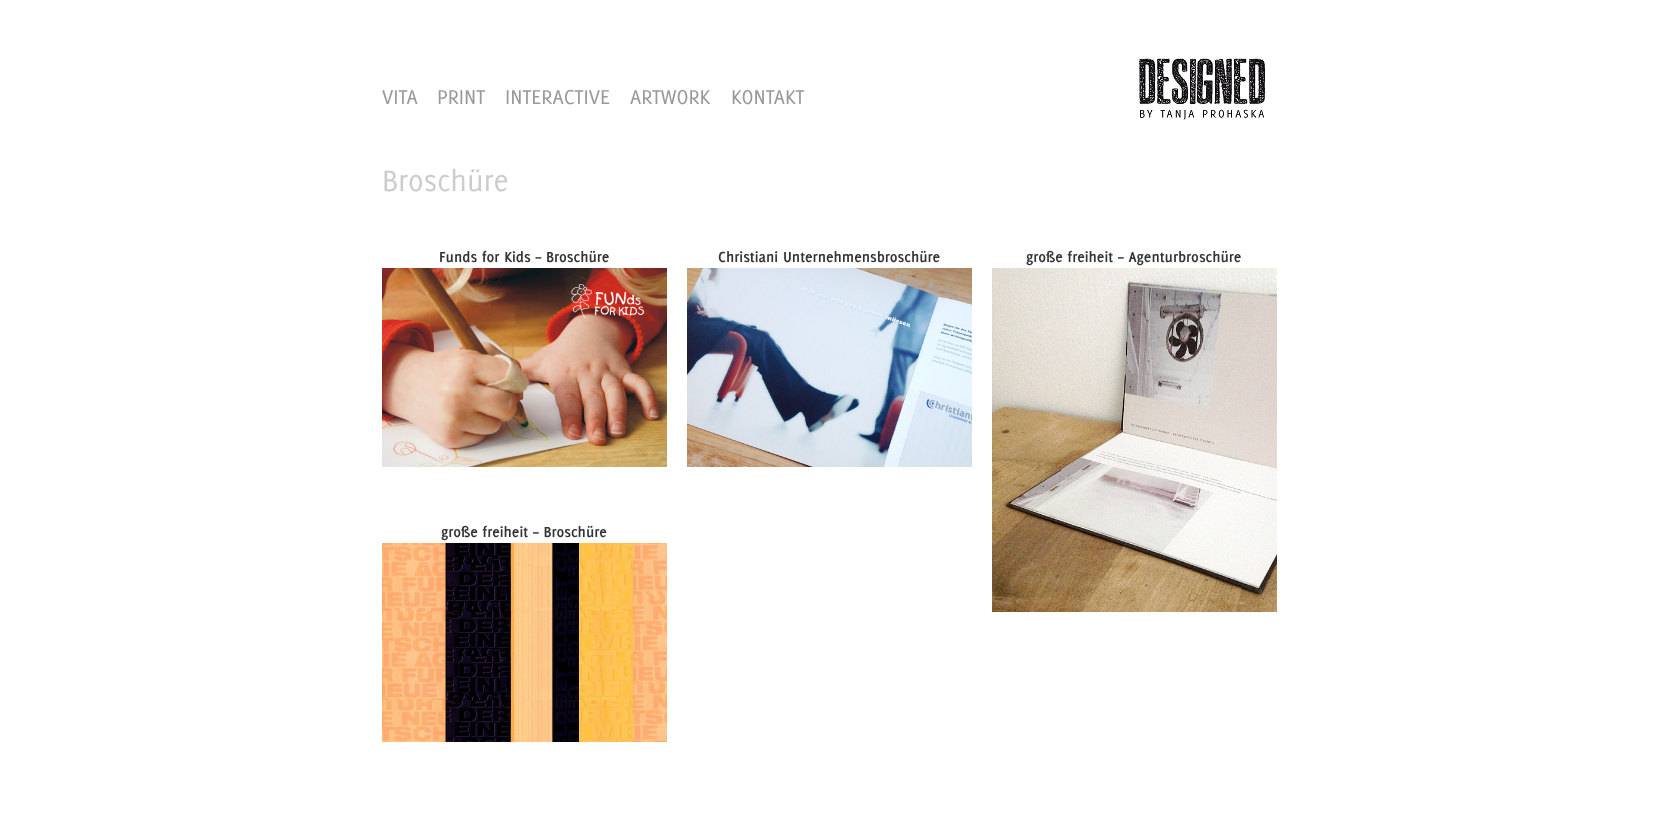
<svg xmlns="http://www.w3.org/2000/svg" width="1679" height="831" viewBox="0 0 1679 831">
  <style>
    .t1 { font: 22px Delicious; fill: #999; }
    .t2 { font: 32px Delicious; fill: #ccc; }
    .t3 { font: bold 16px Delicious; fill: #333; }
  </style>
  <rect width="100%" height="100%" fill="#fff"/>
  <text x="382" y="104" class="t1">VITA</text>
  <text x="437" y="104" class="t1">PRINT</text>
  <text x="505" y="104" class="t1">INTERACTIVE</text>
  <text x="630" y="104" class="t1">ARTWORK</text>
  <text x="731" y="104" class="t1">KONTAKT</text>
  <image x="1139" y="58" width="126" height="62" href="images/1.png"/>
  <text x="382" y="191" class="t2">Broschüre</text>
  <text x="439" y="262" class="t3">Funds for Kids – Broschüre</text>
  <image x="382" y="268" width="285" height="199" href="images/2.png"/>
  <text x="718" y="262" class="t3">Christiani Unternehmensbroschüre</text>
  <image x="687" y="268" width="285" height="199" href="images/3.png"/>
  <text x="1026" y="262" class="t3">große freiheit – Agenturbroschüre</text>
  <image x="992" y="268" width="285" height="344" href="images/4.png"/>
  <text x="441" y="537" class="t3">große freiheit – Broschüre</text>
  <image x="382" y="543" width="285" height="199" href="images/5.png"/>
</svg>
